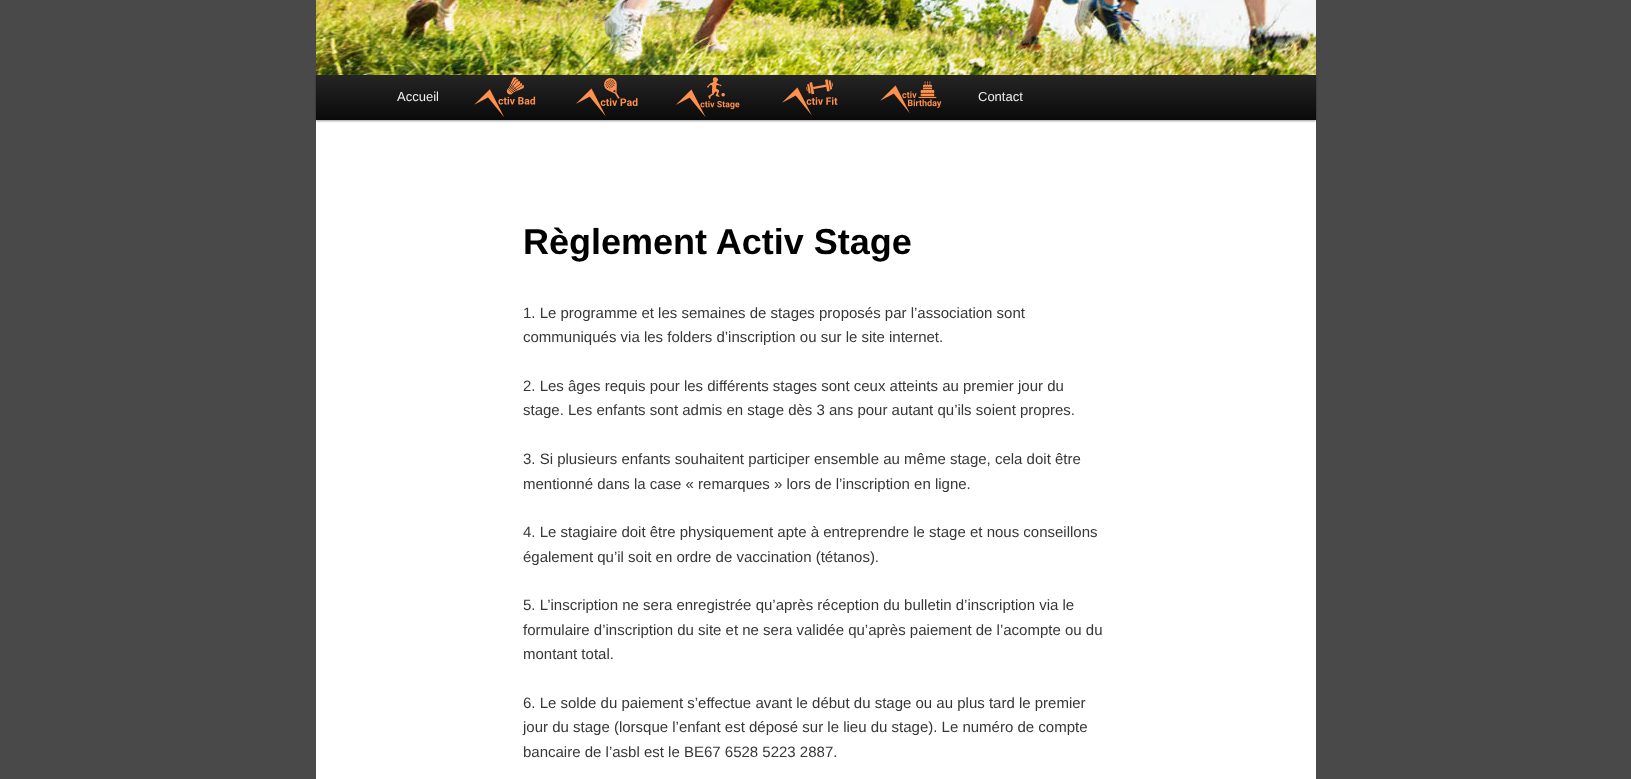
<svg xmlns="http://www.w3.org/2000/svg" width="1631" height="779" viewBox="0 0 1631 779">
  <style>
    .t1 { font: 13px Liberation Sans; fill: #eee; }
    .t2 { font: bold 36px Liberation Sans; fill: #000; }
    .t3 { font: 15px Liberation Sans; fill: #373737; }
  </style>
  <defs>
    <linearGradient id="g1" gradientUnits="userSpaceOnUse" x1="816" y1="75" x2="816" y2="120"><stop offset="0" stop-color="#252525"/><stop offset="1" stop-color="#0a0a0a"/></linearGradient>
  </defs>
  <rect width="100%" height="100%" fill="#494949"/>
  <rect x="316" y="120" width="1000" height="659" fill="#fff"/>
  <rect x="316" y="76" width="1000" height="45" fill="#00000066" filter="blur(1px)"/>
  <image x="316" y="0" width="1000" height="75" href="images/1.png"/>
  <rect x="316" y="75" width="1000" height="45" fill="url(#g1)"/>
  <text x="397" y="101" class="t1">Accueil</text>
  <image x="474" y="77" width="62" height="40" href="images/2.png"/>
  <image x="576" y="78" width="62" height="39" href="images/3.png"/>
  <image x="676" y="77" width="64" height="41" href="images/4.png"/>
  <image x="782" y="79" width="56" height="36" href="images/5.png"/>
  <image x="880" y="81" width="62" height="33" href="images/6.png"/>
  <text x="978" y="101" class="t1">Contact</text>
  <text x="523" y="254" class="t2">Règlement Activ Stage</text>
  <text x="523" y="318" class="t3">1. Le programme et les semaines de stages proposés par l’association sont</text>
  <text x="523" y="342" class="t3">communiqués via les folders d’inscription ou sur le site internet.</text>
  <text x="523" y="391" class="t3">2. Les âges requis pour les différents stages sont ceux atteints au premier jour du</text>
  <text x="523" y="415" class="t3">stage. Les enfants sont admis en stage dès 3 ans pour autant qu’ils soient propres.</text>
  <text x="523" y="464" class="t3">3. Si plusieurs enfants souhaitent participer ensemble au même stage, cela doit être</text>
  <text x="523" y="489" class="t3">mentionné dans la case « remarques » lors de l’inscription en ligne.</text>
  <text x="523" y="537" class="t3">4. Le stagiaire doit être physiquement apte à entreprendre le stage et nous conseillons</text>
  <text x="523" y="562" class="t3">également qu’il soit en ordre de vaccination (tétanos).</text>
  <text x="523" y="610" class="t3">5. L’inscription ne sera enregistrée qu’après réception du bulletin d’inscription via le</text>
  <text x="523" y="635" class="t3">formulaire d’inscription du site et ne sera validée qu’après paiement de l’acompte ou du</text>
  <text x="523" y="659" class="t3">montant total.</text>
  <text x="523" y="708" class="t3">6. Le solde du paiement s’effectue avant le début du stage ou au plus tard le premier</text>
  <text x="523" y="732" class="t3">jour du stage (lorsque l’enfant est déposé sur le lieu du stage). Le numéro de compte</text>
  <text x="523" y="757" class="t3">bancaire de l’asbl est le BE67 6528 5223 2887.</text>
</svg>
